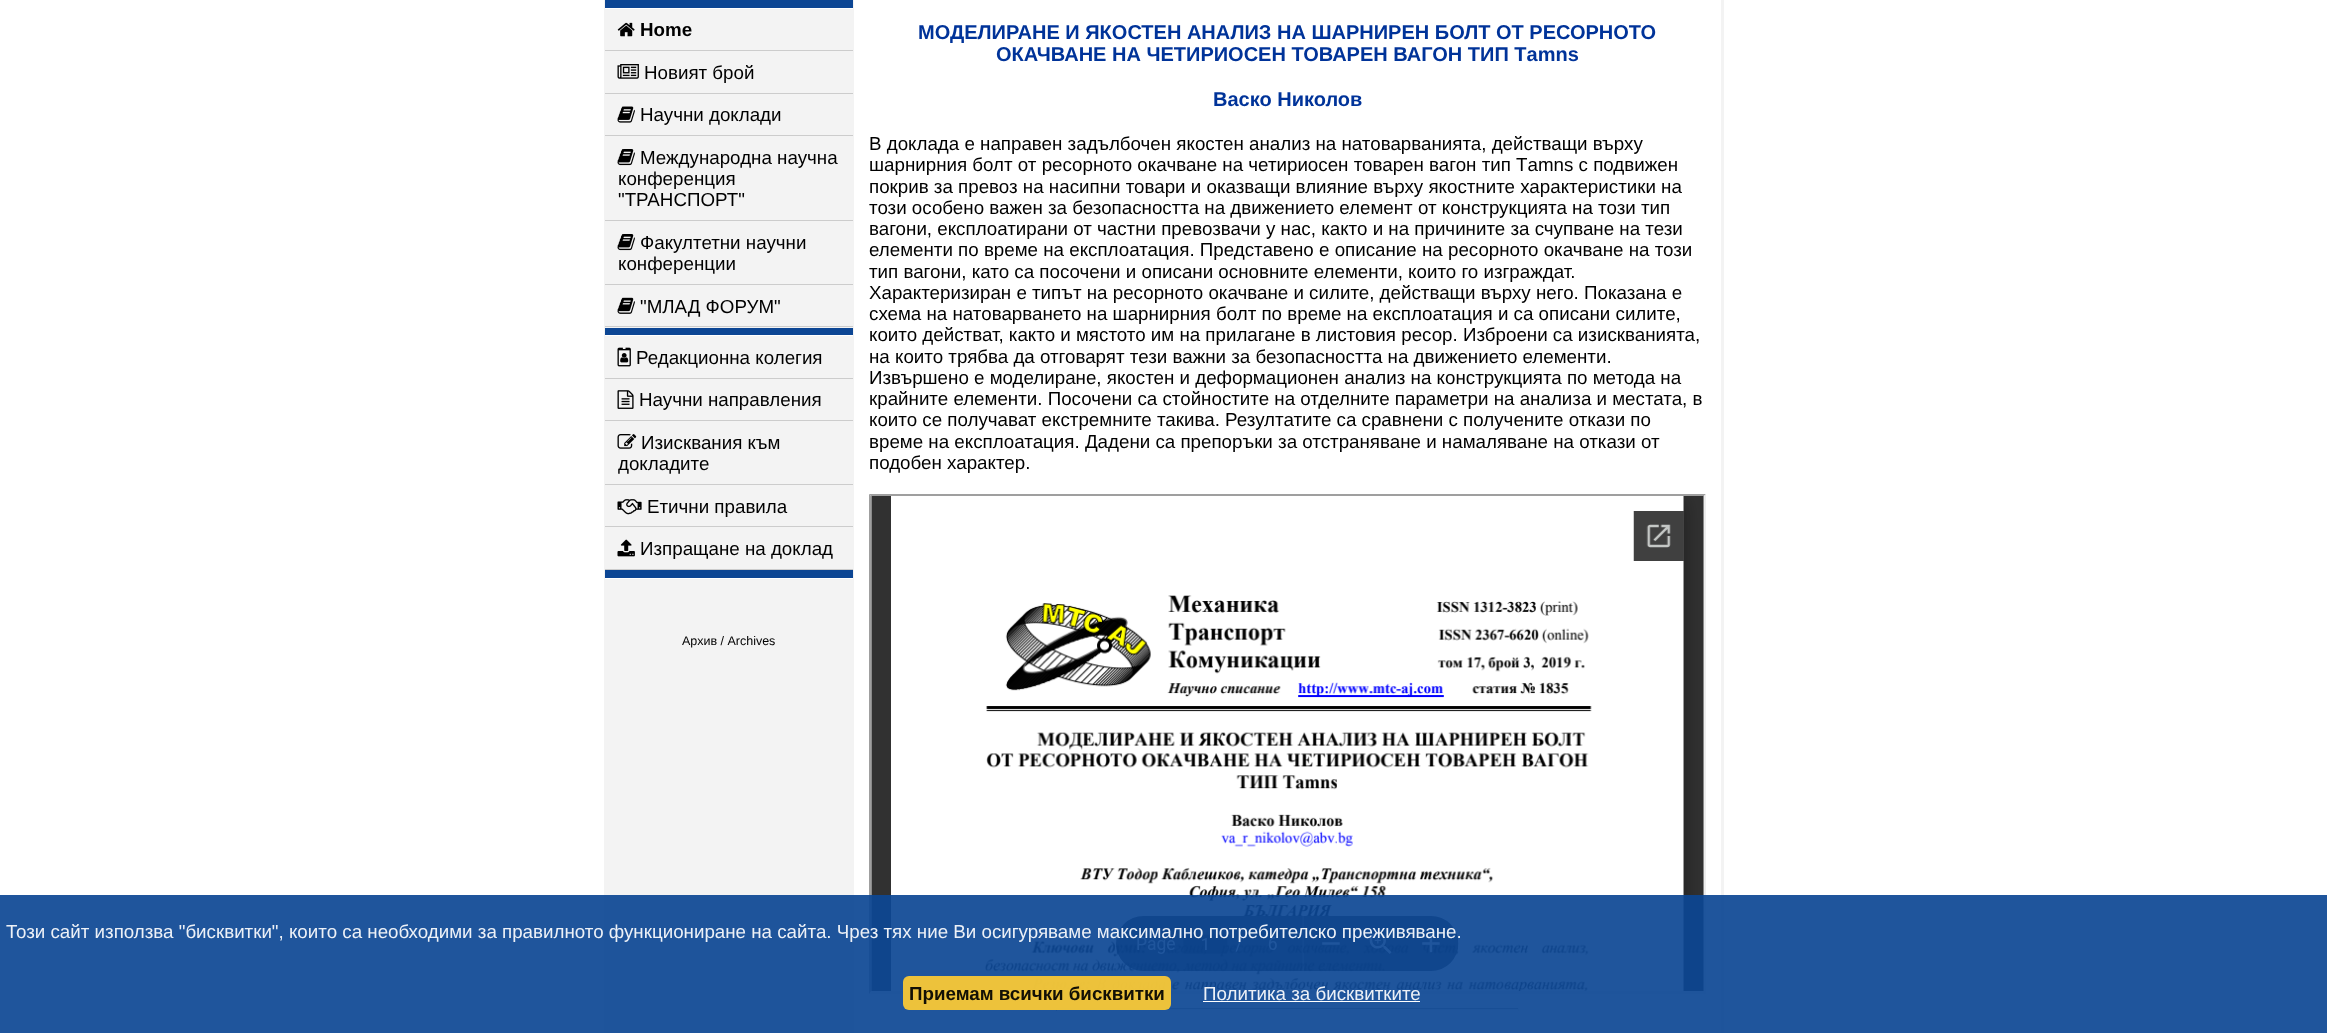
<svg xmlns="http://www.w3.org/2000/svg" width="2327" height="1033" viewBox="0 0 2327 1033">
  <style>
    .t1 { font: bold 18.75px Liberation Sans; fill: #000; }
    .t2 { font: 18.75px Liberation Sans; fill: #000; }
    .t3 { font: 12.5px Liberation Sans; fill: #000; }
    .t4 { font: bold 20px Liberation Sans; fill: #039; }
    .t5 { font: 18.75px Liberation Sans; fill: #edf1f7; }
    .t6 { font: bold 18.75px Liberation Sans; fill: #131005; }
  </style>
  <rect width="100%" height="100%" fill="#fff"/>
  <rect x="604" y="0" width="250" height="1033" fill="#f3f3f3"/>
  <rect x="605" y="0" width="248" height="8" fill="#0c4694"/>
  <rect x="605" y="8" width="248" height="1" fill="#fff"/>
  <rect x="605" y="50" width="248" height="1" fill="#ccc"/>
  <image x="617" y="22" width="18" height="15" href="images/1.png"/>
  <text x="640" y="36" class="t1">Home</text>
  <rect x="605" y="93" width="248" height="1" fill="#ccc"/>
  <image x="617" y="64" width="22" height="15" href="images/2.png"/>
  <text x="644" y="79" class="t2">Новият брой</text>
  <rect x="605" y="135" width="248" height="1" fill="#ccc"/>
  <image x="617" y="106" width="18" height="17" href="images/3.png"/>
  <text x="640" y="121" class="t2">Научни доклади</text>
  <rect x="605" y="220" width="248" height="1" fill="#ccc"/>
  <image x="617" y="149" width="18" height="17" href="images/4.png"/>
  <text x="640" y="164" class="t2">Международна научна</text>
  <text x="618" y="185" class="t2">конференция</text>
  <text x="618" y="206" class="t2">"ТРАНСПОРТ"</text>
  <rect x="605" y="284" width="248" height="1" fill="#ccc"/>
  <image x="617" y="234" width="18" height="17" href="images/4.png"/>
  <text x="640" y="249" class="t2">Факултетни научни</text>
  <text x="618" y="270" class="t2">конференции</text>
  <rect x="605" y="326" width="248" height="1" fill="#ccc"/>
  <image x="617" y="297" width="18" height="17" href="images/5.png"/>
  <text x="640" y="313" class="t2">"МЛАД ФОРУМ"</text>
  <rect x="605" y="328" width="248" height="7" fill="#0c4694"/>
  <rect x="605" y="335" width="248" height="1" fill="#fff"/>
  <rect x="605" y="378" width="248" height="1" fill="#ccc"/>
  <image x="617" y="347" width="14" height="20" href="images/6.png"/>
  <text x="636" y="364" class="t2">Редакционна колегия</text>
  <rect x="605" y="420" width="248" height="1" fill="#ccc"/>
  <image x="617" y="390" width="17" height="19" href="images/7.png"/>
  <text x="639" y="406" class="t2">Научни направления</text>
  <rect x="605" y="484" width="248" height="1" fill="#ccc"/>
  <image x="617" y="434" width="20" height="15" href="images/8.png"/>
  <text x="641" y="449" class="t2">Изисквания към</text>
  <text x="618" y="470" class="t2">докладите</text>
  <rect x="605" y="526" width="248" height="1" fill="#ccc"/>
  <image x="617" y="499" width="25" height="16" href="images/9.png"/>
  <text x="647" y="513" class="t2">Етични правила</text>
  <rect x="605" y="569" width="248" height="1" fill="#ccc"/>
  <image x="617" y="539" width="18" height="18" href="images/10.png"/>
  <text x="640" y="555" class="t2">Изпращане на доклад</text>
  <rect x="605" y="570" width="248" height="8" fill="#0c4694"/>
  <rect x="605" y="578" width="248" height="1" fill="#fff"/>
  <text x="682" y="645" class="t3">Архив / Archives</text>
  <text x="918" y="39" class="t4">МОДЕЛИРАНЕ И ЯКОСТЕН АНАЛИЗ НА ШАРНИРЕН БОЛТ ОТ РЕСОРНОТО</text>
  <text x="996" y="61" class="t4">ОКАЧВАНЕ НА ЧЕТИРИОСЕН ТОВАРЕН ВАГОН ТИП Тamns</text>
  <text x="1213" y="106" class="t4">Васко Николов</text>
  <text x="869" y="150" class="t2">В доклада е направен задълбочен якостен анализ на натоварванията, действащи върху</text>
  <text x="869" y="171" class="t2">шарнирния болт от ресорното окачване на четириосен товарен вагон тип Тamns с подвижен</text>
  <text x="869" y="193" class="t2">покрив за превоз на насипни товари и оказващи влияние върху якостните характеристики на</text>
  <text x="869" y="214" class="t2">този особено важен за безопасността на движението елемент от конструкцията на този тип</text>
  <text x="869" y="235" class="t2">вагони, експлоатирани от частни превозвачи у нас, както и на причините за счупване на тези</text>
  <text x="869" y="256" class="t2">елементи по време на експлоатация. Представено е описание на ресорното окачване на този</text>
  <text x="869" y="278" class="t2">тип вагони, като са посочени и описани основните елементи, които го изграждат.</text>
  <text x="869" y="299" class="t2">Характеризиран е типът на ресорното окачване и силите, действащи върху него. Показана е</text>
  <text x="869" y="320" class="t2">схема на натоварването на шарнирния болт по време на експлоатация и са описани силите,</text>
  <text x="869" y="341" class="t2">които действат, както и мястото им на прилагане в листовия ресор. Изброени са изискванията,</text>
  <text x="869" y="363" class="t2">на които трябва да отговарят тези важни за безопасността на движението елементи.</text>
  <text x="869" y="384" class="t2">Извършено е моделиране, якостен и деформационен анализ на конструкцията по метода на</text>
  <text x="869" y="405" class="t2">крайните елементи. Посочени са стойностите на отделните параметри на анализа и местата, в</text>
  <text x="869" y="426" class="t2">които се получават екстремните такива. Резултатите са сравнени с получените откази по</text>
  <text x="869" y="448" class="t2">време на експлоатация. Дадени са препоръки за отстраняване и намаляване на откази от</text>
  <text x="869" y="469" class="t2">подобен характер.</text>
  <path d="M869 494H1706L1704 496H871Z" fill="#9f9f9f"/>
  <path d="M1706 494V994L1704 991V496Z" fill="#eee"/>
  <path d="M1706 994H869L871 991H1704Z" fill="#eee"/>
  <path d="M869 994V494L871 496V991Z" fill="#9f9f9f"/>
  <image x="871" y="496" width="833" height="495" href="images/11.png"/>
  <rect x="1056" y="1008" width="463" height="1" fill="#9f9f9f"/>
  <rect x="1518" y="1008" width="1" height="3" fill="#eee"/>
  <rect x="1056" y="1009" width="463" height="1" fill="#eee"/>
  <rect x="1056" y="1008" width="1" height="3" fill="#9f9f9f"/>
  <rect x="1721" y="0" width="3" height="1033" fill="#f3f3f3"/>
  <rect x="0" y="895" width="2327" height="138" fill="#0c4694eb"/>
  <text x="6" y="938" class="t5">Този сайт използва "бисквитки", които са необходими за правилното функциониране на сайта. Чрез тях ние Ви осигуряваме максимално потребителско преживяване.</text>
  <rect x="903" y="976" width="268" height="34" rx="6" fill="#ffcc33eb"/>
  <text x="909" y="1000" class="t6">Приемам всички бисквитки</text>
  <text x="1203" y="1000" class="t5">Политика за бисквитките</text>
  <rect x="1203" y="1001" width="217" height="1" fill="#fff"/>
</svg>
